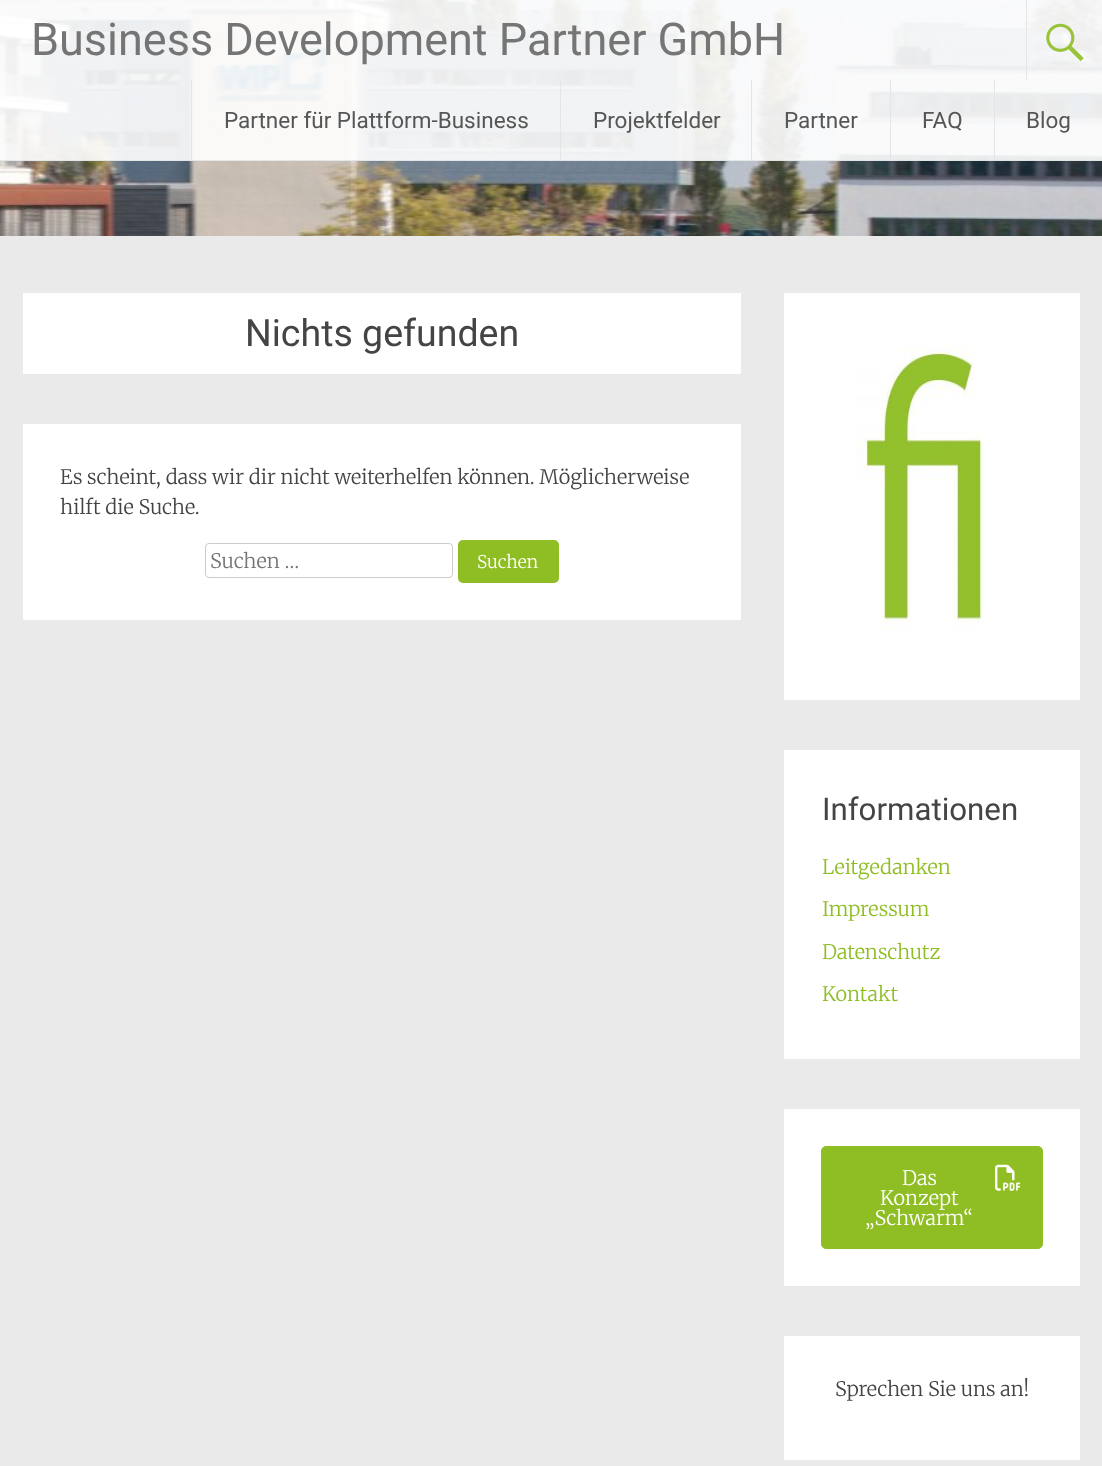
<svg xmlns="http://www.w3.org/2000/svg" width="1102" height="1466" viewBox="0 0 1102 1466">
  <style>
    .t1 { font: 45px Roboto; fill: #757575; }
    .t2 { font: 22.5px Roboto; fill: #565656; }
    .t3 { font: 37.5px Roboto; fill: #444; }
    .t4 { font: 300 20px Merriweather; fill: #444; }
    .t5 { font: 300 20px Merriweather; fill: #757575; }
    .t6 { font: 300 17.5px Merriweather; fill: #fff; }
    .t7 { font: 31.25px Roboto; fill: #444; }
    .t8 { font: 300 20px Merriweather; fill: #8fbe24; }
    .t9 { font: 300 20px Merriweather; fill: #fff; }
  </style>
  <rect width="100%" height="100%" fill="#fff"/>
  <image x="0" y="0" width="1102" height="236" href="images/1.png"/>
  <rect x="0" y="0" width="1102" height="161" fill="#ffffffe6"/>
  <rect x="0" y="160" width="1102" height="1" fill="#e1e4e6e6"/>
  <text x="31" y="55" class="t1">Business Development Partner GmbH</text>
  <rect x="1026" y="0" width="1" height="80" fill="#e1e4e6e6"/>
  <image x="1046" y="23" width="38" height="39" href="images/2.png"/>
  <rect x="191" y="80" width="1" height="80" fill="#e3e6e7"/>
  <text x="224" y="128" class="t2">Partner für Plattform-Business</text>
  <rect x="560" y="80" width="1" height="80" fill="#e1e4e6e6"/>
  <text x="593" y="128" class="t2">Projektfelder</text>
  <rect x="751" y="80" width="1" height="80" fill="#e3e6e8"/>
  <text x="784" y="128" class="t2">Partner</text>
  <rect x="890" y="80" width="1" height="80" fill="#e1e4e6e6"/>
  <text x="922" y="128" class="t2">FAQ</text>
  <rect x="994" y="80" width="1" height="80" fill="#e1e4e6e6"/>
  <text x="1026" y="128" class="t2">Blog</text>
  <rect x="0" y="236" width="1102" height="1230" fill="#eaeaea"/>
  <rect x="23" y="293" width="718" height="81" fill="#fff"/>
  <text x="245" y="346" class="t3">Nichts gefunden</text>
  <rect x="23" y="424" width="718" height="196" fill="#fff"/>
  <text x="60" y="484" class="t4">Es scheint, dass wir dir nicht weiterhelfen können. Möglicherweise</text>
  <text x="60" y="514" class="t4">hilft die Suche.</text>
  <rect x="205.5" y="543.5" width="247" height="34" rx="3.5" fill="none" stroke="#ccc"/>
  <text x="210" y="568" class="t5">Suchen …</text>
  <rect x="458" y="540" width="101" height="43" rx="5" fill="#8fbe24"/>
  <text x="477" y="568" class="t6">Suchen</text>
  <rect x="784" y="293" width="296" height="407" fill="#fff"/>
  <image x="856" y="346" width="131" height="285" href="images/3.png"/>
  <rect x="784" y="750" width="296" height="309" fill="#fff"/>
  <text x="822" y="820" class="t7">Informationen</text>
  <text x="822" y="874" class="t8">Leitgedanken</text>
  <text x="822" y="916" class="t8">Impressum</text>
  <text x="822" y="959" class="t8">Datenschutz</text>
  <text x="822" y="1001" class="t8">Kontakt</text>
  <rect x="784" y="1109" width="296" height="177" fill="#fff"/>
  <rect x="821.5" y="1146.5" width="221" height="102" rx="4.5" fill="#8fbe24" stroke="#8fbe24"/>
  <text x="902" y="1185" class="t9">Das</text>
  <image x="995" y="1164" width="26" height="27" href="images/4.png"/>
  <text x="880" y="1205" class="t9">Konzept</text>
  <text x="865" y="1225" class="t9">„Schwarm“</text>
  <rect x="784" y="1336" width="296" height="124" fill="#fff"/>
  <text x="835" y="1396" class="t4">Sprechen Sie uns an!</text>
</svg>
